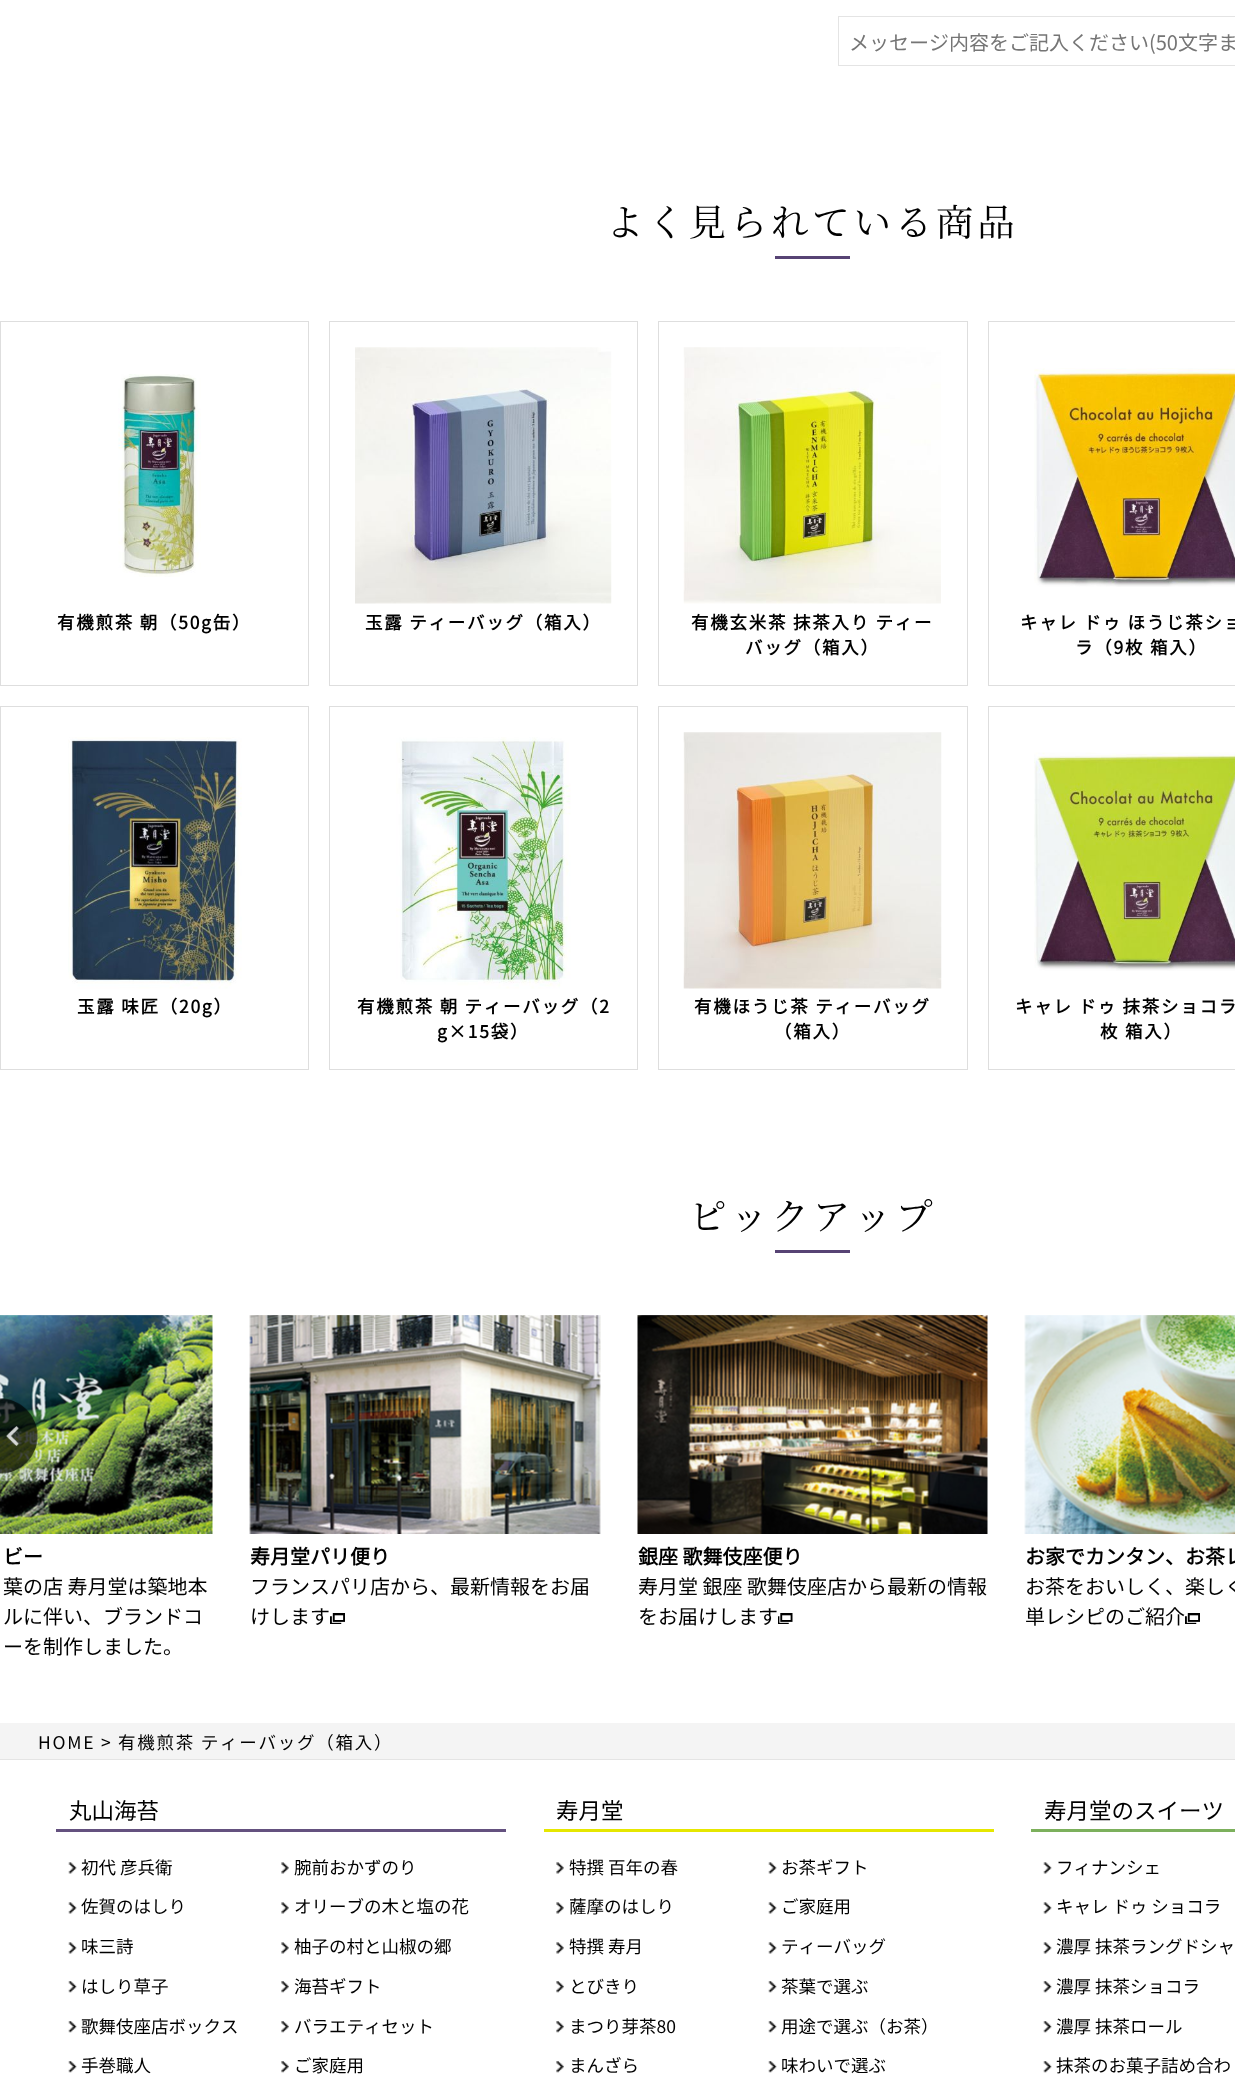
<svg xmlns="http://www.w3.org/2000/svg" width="1235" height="2077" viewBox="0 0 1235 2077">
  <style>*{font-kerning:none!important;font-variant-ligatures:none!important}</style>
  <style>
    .t1 { font: 20px Noto Sans JP; fill: #757575; }
    .t2 { font: 37.5px Noto Serif JP; letter-spacing: 3.75px; fill: #000; }
    .t3 { font: bold 17.5px Noto Sans JP; letter-spacing: 1.75px; fill: #000; }
    .t4 { font: bold 20px Noto Sans JP; fill: #000; }
    .t5 { font: 20px Noto Sans JP; fill: #000; }
    .t6 { font: 17.5px Noto Sans JP; letter-spacing: 1.75px; fill: #000; }
    .t7 { font: 22.5px Noto Sans JP; fill: #000; }
    .t8 { font: 17.5px Noto Sans JP; fill: #000; }
  </style>
  <rect width="100%" height="100%" fill="#fff"/>
  <rect x="838.5" y="16.5" width="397" height="49" fill="none" stroke="#e4e4e4"/>
  <text x="849" y="50" class="t1">メッセージ内容をご記入ください(50文字ま</text>
  <text x="606" y="236" class="t2">よく見られている商品</text>
  <rect x="775" y="256" width="75" height="3" fill="#574374"/>
  <rect x="0.5" y="321.5" width="308" height="364" fill="none" stroke="#dedede"/>
  <image x="118" y="374" width="83" height="203" href="images/1.png"/>
  <text x="57" y="629" class="t3">有機煎茶 朝（50g缶）</text>
  <rect x="329.5" y="321.5" width="308" height="364" fill="none" stroke="#dedede"/>
  <image x="355" y="347" width="257" height="257" href="images/2.png"/>
  <text x="365" y="629" class="t3">玉露 ティーバッグ（箱入）</text>
  <rect x="658.5" y="321.5" width="309" height="364" fill="none" stroke="#dedede"/>
  <image x="683" y="347" width="258" height="257" href="images/3.png"/>
  <text x="691" y="629" class="t3">有機玄米茶 抹茶入り ティー</text>
  <text x="745" y="654" class="t3">バッグ（箱入）</text>
  <rect x="988.5" y="321.5" width="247" height="364" fill="none" stroke="#dedede"/>
  <image x="1034" y="368" width="201" height="219" href="images/4.png"/>
  <text x="1020" y="629" class="t3">キャレ ドゥ ほうじ茶ショ</text>
  <text x="1075" y="654" class="t3">ラ（9枚 箱入）</text>
  <rect x="0.5" y="706.5" width="308" height="363" fill="none" stroke="#dedede"/>
  <image x="68" y="737" width="174" height="252" href="images/5.png"/>
  <text x="77" y="1013" class="t3">玉露 味匠（20g）</text>
  <rect x="329.5" y="706.5" width="308" height="363" fill="none" stroke="#dedede"/>
  <image x="396" y="737" width="175" height="252" href="images/6.png"/>
  <text x="357" y="1013" class="t3">有機煎茶 朝 ティーバッグ（2</text>
  <text x="437" y="1038" class="t3">g×15袋）</text>
  <rect x="658.5" y="706.5" width="309" height="363" fill="none" stroke="#dedede"/>
  <image x="683" y="732" width="259" height="257" href="images/7.png"/>
  <text x="694" y="1013" class="t3">有機ほうじ茶 ティーバッグ</text>
  <text x="774" y="1038" class="t3">（箱入）</text>
  <rect x="988.5" y="706.5" width="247" height="363" fill="none" stroke="#dedede"/>
  <image x="1034" y="752" width="201" height="219" href="images/8.png"/>
  <text x="1015" y="1013" class="t3">キャレ ドゥ 抹茶ショコラ</text>
  <text x="1100" y="1038" class="t3">枚 箱入）</text>
  <text x="689" y="1230" class="t2">ピックアップ</text>
  <rect x="775" y="1250" width="75" height="3" fill="#574374"/>
  <image x="0" y="1315" width="213" height="219" href="images/10.png"/>
  <image x="0" y="1398" width="38" height="76" href="images/9.png"/>
  <text x="3" y="1564" class="t4">ビー</text>
  <text x="3" y="1594" class="t5">葉の店 寿月堂は築地本</text>
  <text x="3" y="1624" class="t5">ルに伴い、ブランドコ</text>
  <text x="3" y="1654" class="t5">ーを制作しました。</text>
  <image x="249" y="1315" width="352" height="219" href="images/11.png"/>
  <text x="250" y="1564" class="t4">寿月堂パリ便り</text>
  <text x="250" y="1594" class="t5">フランスパリ店から、最新情報をお届</text>
  <text x="250" y="1624" class="t5">けします</text>
  <image x="330" y="1613" width="15" height="11" href="images/12.png"/>
  <image x="637" y="1315" width="351" height="219" href="images/13.png"/>
  <text x="638" y="1564" class="t4">銀座 歌舞伎座便り</text>
  <text x="638" y="1594" class="t5">寿月堂 銀座 歌舞伎座店から最新の情報</text>
  <text x="638" y="1624" class="t5">をお届けします</text>
  <image x="778" y="1613" width="15" height="11" href="images/14.png"/>
  <image x="1024" y="1315" width="211" height="219" href="images/15.png"/>
  <text x="1025" y="1564" class="t4">お家でカンタン、お茶レ</text>
  <text x="1025" y="1594" class="t5">お茶をおいしく、楽しく</text>
  <text x="1025" y="1624" class="t5">単レシピのご紹介</text>
  <image x="1185" y="1613" width="15" height="11" href="images/12.png"/>
  <rect x="0" y="1723" width="1235" height="36" fill="#f4f4f4"/>
  <rect x="0" y="1759" width="1235" height="1" fill="#e4e4e4"/>
  <text x="38" y="1749" class="t6">HOME &gt; 有機煎茶 ティーバッグ（箱入）</text>
  <rect x="56" y="1829" width="450" height="3" fill="#64517f"/>
  <text x="69" y="1819" class="t7">丸山海苔</text>
  <image x="68" y="1862" width="9" height="12" href="images/16.png"/>
  <text x="81" y="1874" class="t8">初代 彦兵衛</text>
  <image x="68" y="1902" width="9" height="12" href="images/16.png"/>
  <text x="81" y="1913" class="t8">佐賀のはしり</text>
  <image x="68" y="1942" width="9" height="12" href="images/16.png"/>
  <text x="81" y="1953" class="t8">味三詩</text>
  <image x="68" y="1981" width="9" height="12" href="images/17.png"/>
  <text x="81" y="1993" class="t8">はしり草子</text>
  <image x="68" y="2021" width="9" height="12" href="images/17.png"/>
  <text x="81" y="2033" class="t8">歌舞伎座店ボックス</text>
  <image x="68" y="2061" width="9" height="12" href="images/17.png"/>
  <text x="81" y="2072" class="t8">手巻職人</text>
  <image x="281" y="1862" width="8" height="12" href="images/18.png"/>
  <text x="294" y="1874" class="t8">腕前おかずのり</text>
  <image x="281" y="1902" width="8" height="12" href="images/18.png"/>
  <text x="294" y="1913" class="t8">オリーブの木と塩の花</text>
  <image x="281" y="1942" width="8" height="12" href="images/18.png"/>
  <text x="294" y="1953" class="t8">柚子の村と山椒の郷</text>
  <image x="281" y="1981" width="8" height="12" href="images/19.png"/>
  <text x="294" y="1993" class="t8">海苔ギフト</text>
  <image x="281" y="2021" width="8" height="12" href="images/19.png"/>
  <text x="294" y="2033" class="t8">バラエティセット</text>
  <image x="281" y="2061" width="8" height="12" href="images/19.png"/>
  <text x="294" y="2072" class="t8">ご家庭用</text>
  <rect x="544" y="1829" width="450" height="3" fill="#e6e700"/>
  <text x="556" y="1819" class="t7">寿月堂</text>
  <image x="556" y="1862" width="8" height="12" href="images/18.png"/>
  <text x="569" y="1874" class="t8">特撰 百年の春</text>
  <image x="556" y="1902" width="8" height="12" href="images/18.png"/>
  <text x="569" y="1913" class="t8">薩摩のはしり</text>
  <image x="556" y="1942" width="8" height="12" href="images/18.png"/>
  <text x="569" y="1953" class="t8">特撰 寿月</text>
  <image x="556" y="1981" width="8" height="12" href="images/19.png"/>
  <text x="569" y="1993" class="t8">とびきり</text>
  <image x="556" y="2021" width="8" height="12" href="images/19.png"/>
  <text x="569" y="2033" class="t8">まつり芽茶80</text>
  <image x="556" y="2061" width="8" height="12" href="images/19.png"/>
  <text x="569" y="2072" class="t8">まんざら</text>
  <image x="768" y="1862" width="9" height="12" href="images/20.png"/>
  <text x="781" y="1874" class="t8">お茶ギフト</text>
  <image x="768" y="1902" width="9" height="12" href="images/20.png"/>
  <text x="781" y="1913" class="t8">ご家庭用</text>
  <image x="768" y="1942" width="9" height="12" href="images/20.png"/>
  <text x="781" y="1953" class="t8">ティーバッグ</text>
  <image x="768" y="1981" width="9" height="12" href="images/21.png"/>
  <text x="781" y="1993" class="t8">茶葉で選ぶ</text>
  <image x="768" y="2021" width="9" height="12" href="images/21.png"/>
  <text x="781" y="2033" class="t8">用途で選ぶ（お茶）</text>
  <image x="768" y="2061" width="9" height="12" href="images/21.png"/>
  <text x="781" y="2072" class="t8">味わいで選ぶ</text>
  <rect x="1031" y="1829" width="204" height="3" fill="#7cb05c"/>
  <text x="1044" y="1819" class="t7">寿月堂のスイーツ</text>
  <image x="1043" y="1862" width="9" height="12" href="images/16.png"/>
  <text x="1056" y="1874" class="t8">フィナンシェ</text>
  <image x="1043" y="1902" width="9" height="12" href="images/16.png"/>
  <text x="1056" y="1913" class="t8">キャレ ドゥ ショコラ</text>
  <image x="1043" y="1942" width="9" height="12" href="images/16.png"/>
  <text x="1056" y="1953" class="t8">濃厚 抹茶ラングドシャ</text>
  <image x="1043" y="1981" width="9" height="12" href="images/17.png"/>
  <text x="1056" y="1993" class="t8">濃厚 抹茶ショコラ</text>
  <image x="1043" y="2021" width="9" height="12" href="images/17.png"/>
  <text x="1056" y="2033" class="t8">濃厚 抹茶ロール</text>
  <image x="1043" y="2061" width="9" height="12" href="images/17.png"/>
  <text x="1056" y="2072" class="t8">抹茶のお菓子詰め合わ</text>
</svg>
